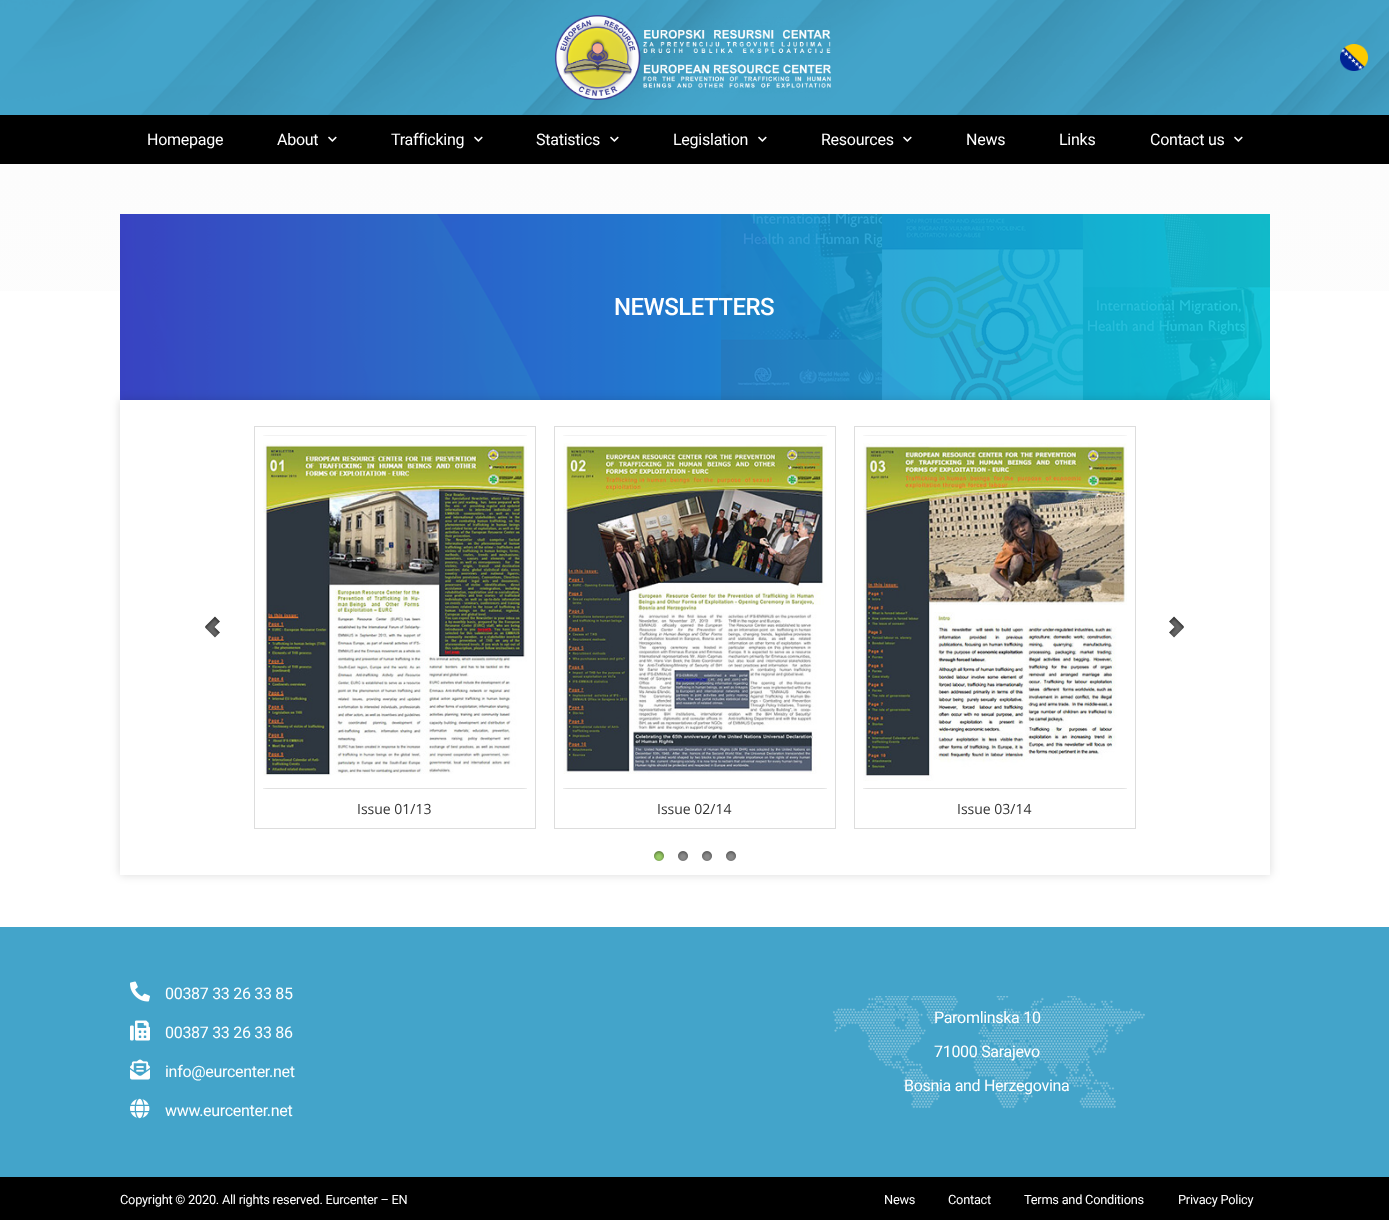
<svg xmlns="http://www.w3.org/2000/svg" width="1389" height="1220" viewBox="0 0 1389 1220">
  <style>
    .t1 { font: 16px Roboto; letter-spacing: -0.25px; fill: #fff; }
    .t2 { font: 500 24px Roboto; letter-spacing: -0.5px; fill: #fff; }
    .t3 { font: 14px Open Sans; fill: #333; }
    .t4 { font: 16px Roboto; letter-spacing: -0.3px; fill: #fff; }
    .t5 { font: 12.8px Roboto; letter-spacing: -0.25px; fill: #fff; }
  </style>
  <defs>
    <linearGradient id="g1" gradientUnits="userSpaceOnUse" x1="695" y1="164" x2="695" y2="925"><stop offset="0" stop-color="#fcfcfc"/><stop offset="1" stop-color="#fff"/></linearGradient>
    <clipPath id="clip1"><rect x="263" y="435" width="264" height="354"/></clipPath>
    <clipPath id="clip2"><path d="M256 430H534V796H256ZM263 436H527V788H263Z" clip-rule="evenodd"/></clipPath>
    <clipPath id="clip3"><rect x="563" y="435" width="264" height="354"/></clipPath>
    <clipPath id="clip4"><path d="M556 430H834V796H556ZM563 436H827V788H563Z" clip-rule="evenodd"/></clipPath>
    <clipPath id="clip5"><rect x="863" y="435" width="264" height="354"/></clipPath>
    <clipPath id="clip6"><path d="M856 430H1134V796H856ZM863 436H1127V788H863Z" clip-rule="evenodd"/></clipPath>
  </defs>
  <rect width="100%" height="100%" fill="#fff"/>
  <image x="0" y="0" width="1389" height="115" href="images/1.png"/>
  <image x="555" y="15" width="276" height="85" href="images/2.png"/>
  <image x="1340" y="44" width="28" height="27" href="images/3.png"/>
  <rect x="0" y="115" width="1389" height="49" fill="#000"/>
  <text x="147" y="145" class="t1">Homepage</text>
  <text x="277" y="145" class="t1">About</text>
  <image x="328" y="136" width="9" height="6" href="images/4.png"/>
  <text x="391" y="145" class="t1">Trafficking</text>
  <image x="474" y="136" width="9" height="6" href="images/4.png"/>
  <text x="536" y="145" class="t1">Statistics</text>
  <image x="610" y="136" width="9" height="6" href="images/4.png"/>
  <text x="673" y="145" class="t1">Legislation</text>
  <image x="758" y="136" width="9" height="6" href="images/4.png"/>
  <text x="821" y="145" class="t1">Resources</text>
  <image x="903" y="136" width="9" height="6" href="images/4.png"/>
  <text x="966" y="145" class="t1">News</text>
  <text x="1059" y="145" class="t1">Links</text>
  <text x="1150" y="145" class="t1">Contact us</text>
  <image x="1234" y="136" width="9" height="6" href="images/4.png"/>
  <rect x="0" y="164" width="1389" height="127" fill="url(#g1)"/>
  <image x="120" y="214" width="1150" height="186" href="images/5.png"/>
  <text x="614" y="315" class="t2">NEWSLETTERS</text>
  <rect x="120" y="400" width="1150" height="475" fill="#00000026" filter="blur(5px)"/>
  <rect x="120" y="400" width="1150" height="475" fill="#fff"/>
  <image x="205" y="616" width="15" height="22" href="images/6.png"/>
  <image x="1169" y="616" width="15" height="22" href="images/7.png"/>
  <rect x="254.5" y="426.5" width="281" height="402" fill="none" stroke="#ddd"/>
  <g clip-path="url(#clip1)">
    <g clip-path="url(#clip2)">
      <rect x="263" y="437" width="264" height="352" fill="#00000033" filter="blur(2px)"/>
    </g>
  </g>
  <image x="263" y="443" width="264" height="333" href="images/8.png"/>
  <text x="357" y="814" class="t3">Issue 01/13</text>
  <rect x="554.5" y="426.5" width="281" height="402" fill="none" stroke="#ddd"/>
  <g clip-path="url(#clip3)">
    <g clip-path="url(#clip4)">
      <rect x="563" y="437" width="264" height="352" fill="#00000033" filter="blur(2px)"/>
    </g>
  </g>
  <image x="563" y="443" width="264" height="331" href="images/9.png"/>
  <text x="657" y="814" class="t3">Issue 02/14</text>
  <rect x="854.5" y="426.5" width="281" height="402" fill="none" stroke="#ddd"/>
  <g clip-path="url(#clip5)">
    <g clip-path="url(#clip6)">
      <rect x="863" y="437" width="264" height="352" fill="#00000033" filter="blur(2px)"/>
    </g>
  </g>
  <image x="863" y="443" width="264" height="338" href="images/10.png"/>
  <text x="957" y="814" class="t3">Issue 03/14</text>
  <image x="654" y="851" width="10" height="10" href="images/11.png"/>
  <image x="678" y="851" width="10" height="10" href="images/12.png"/>
  <image x="702" y="851" width="10" height="10" href="images/12.png"/>
  <image x="726" y="851" width="10" height="10" href="images/12.png"/>
  <rect x="0" y="927" width="1389" height="250" fill="#43a4ca"/>
  <image x="130" y="981" width="20" height="21" href="images/13.png"/>
  <text x="165" y="999" class="t4">00387 33 26 33 85</text>
  <image x="130" y="1020" width="20" height="21" href="images/14.png"/>
  <text x="165" y="1038" class="t4">00387 33 26 33 86</text>
  <image x="130" y="1059" width="20" height="21" href="images/15.png"/>
  <text x="165" y="1077" class="t4">info@eurcenter.net</text>
  <image x="130" y="1098" width="20" height="21" href="images/16.png"/>
  <text x="165" y="1116" class="t4">www.eurcenter.net</text>
  <image x="833" y="996" width="312" height="112" href="images/17.png"/>
  <text x="934" y="1023" class="t4">Paromlinska 10</text>
  <text x="934" y="1057" class="t4">71000 Sarajevo</text>
  <text x="904" y="1091" class="t4">Bosnia and Herzegovina</text>
  <rect x="0" y="1177" width="1389" height="43" fill="#000"/>
  <text x="120" y="1204" class="t5">Copyright © 2020. All rights reserved. Eurcenter – EN</text>
  <text x="884" y="1204" class="t5">News</text>
  <text x="948" y="1204" class="t5">Contact</text>
  <text x="1024" y="1204" class="t5">Terms and Conditions</text>
  <text x="1178" y="1204" class="t5">Privacy Policy</text>
</svg>
